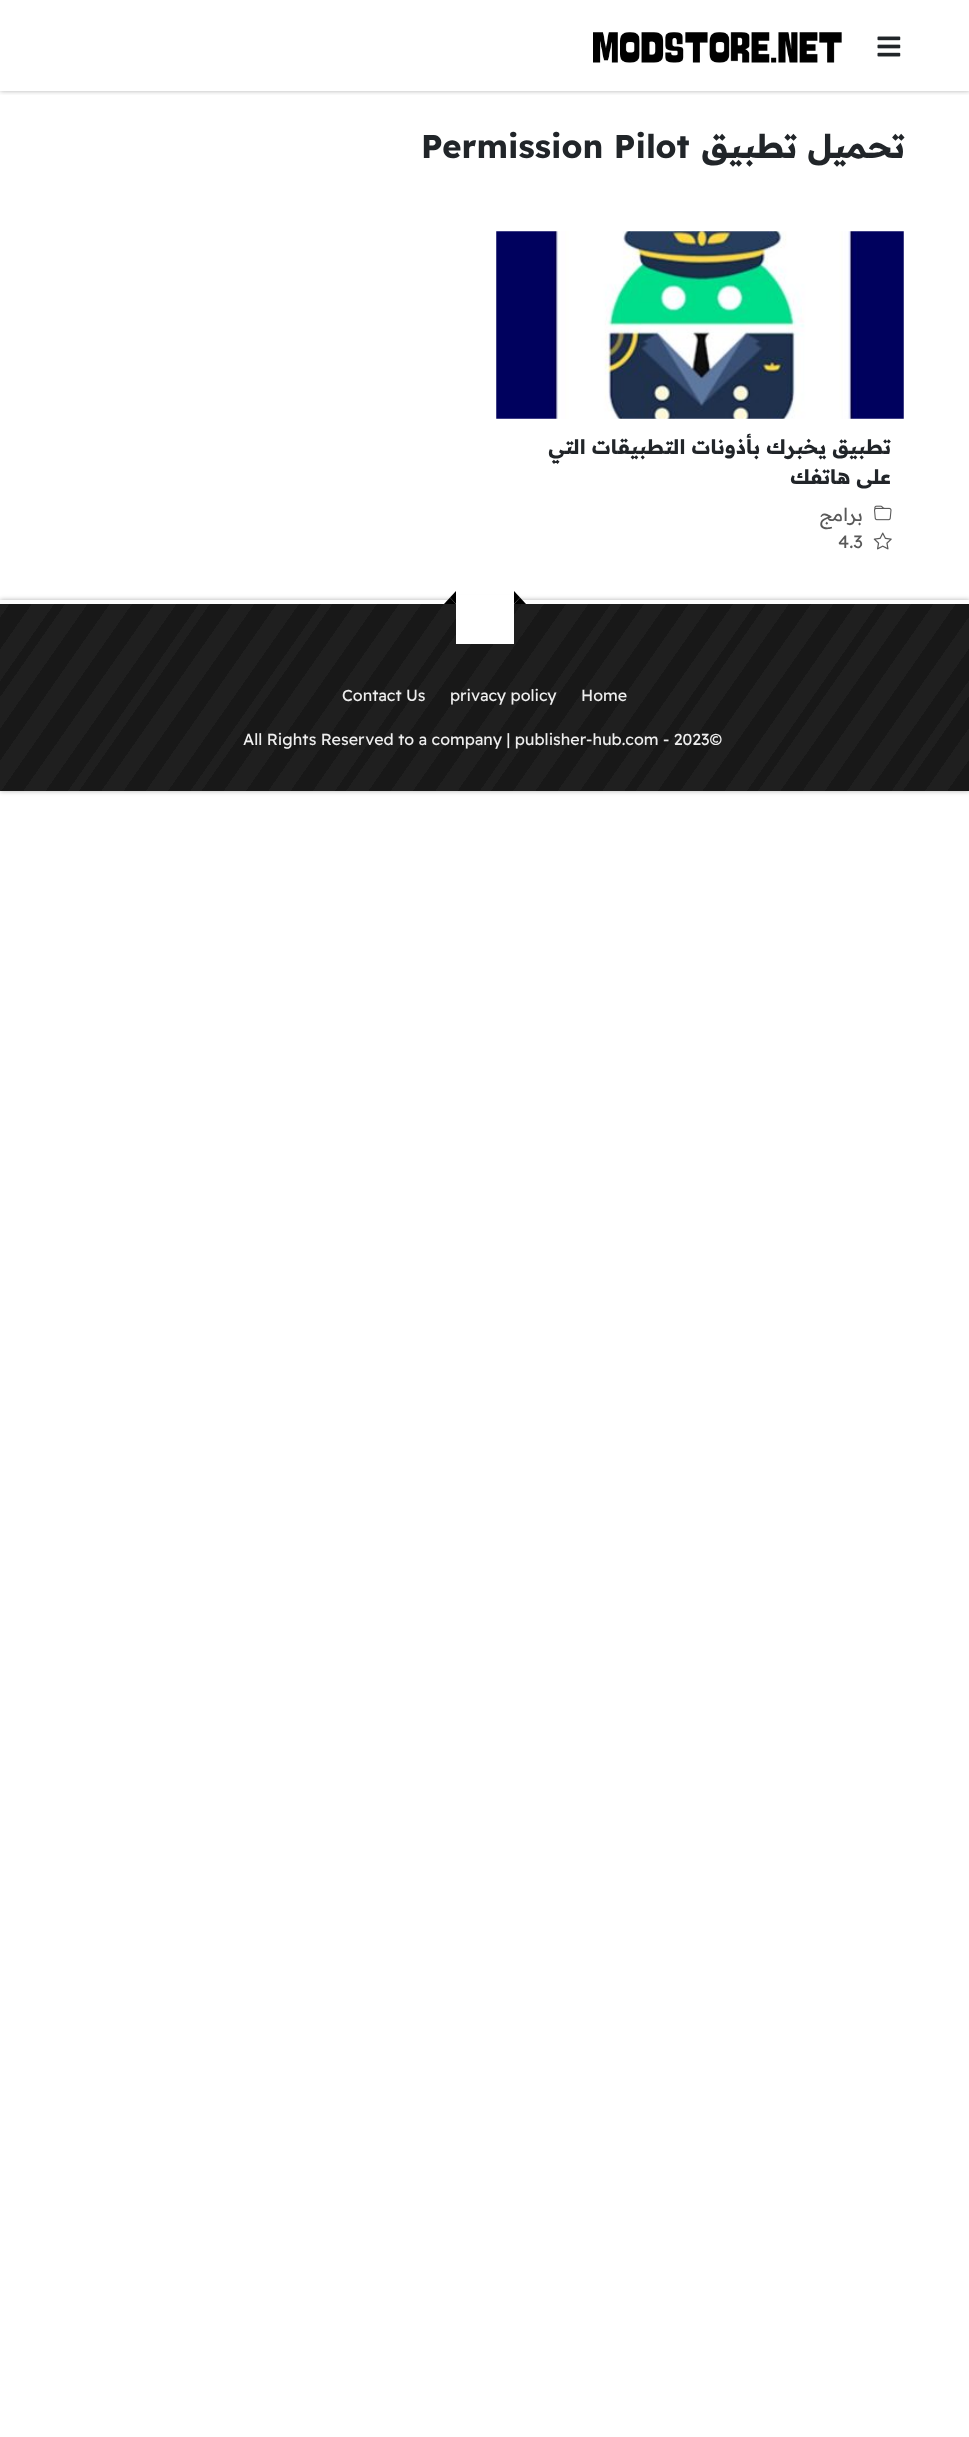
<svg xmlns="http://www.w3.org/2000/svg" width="969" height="2437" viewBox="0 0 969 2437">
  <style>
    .t1 { font: bold 32.75px Readex Pro; fill: #212529; }
    .t2 { font: bold 32.75px Readex Pro; direction: rtl; fill: #212529; }
    .t3 { font: bold 20px Readex Pro; direction: rtl; fill: #212529; }
    .t4 { font: 18px Readex Pro; direction: rtl; fill: #595959; }
    .t5 { font: 18px Readex Pro; fill: #595959; }
    .t6 { font: 16px Readex Pro; fill: #eee; }
  </style>
  <defs>
    <clipPath id="clip1"><rect x="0" y="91" width="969" height="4"/></clipPath>
    <linearGradient id="g1" gradientUnits="userSpaceOnUse" x1="854" y1="956" x2="107" y2="433"><stop offset="0" stop-color="#181818"/><stop offset="0.01" stop-color="#181818"/><stop offset="0.01" stop-color="#1f1f1f"/><stop offset="0.01" stop-color="#181818"/><stop offset="0.02" stop-color="#181818"/><stop offset="0.02" stop-color="#1f1f1f"/><stop offset="0.03" stop-color="#1f1f1f"/><stop offset="0.03" stop-color="#181818"/><stop offset="0.03" stop-color="#1f1f1f"/><stop offset="0.04" stop-color="#1f1f1f"/><stop offset="0.04" stop-color="#181818"/><stop offset="0.05" stop-color="#181818"/><stop offset="0.05" stop-color="#1f1f1f"/><stop offset="0.05" stop-color="#181818"/><stop offset="0.06" stop-color="#181818"/><stop offset="0.06" stop-color="#1f1f1f"/><stop offset="0.07" stop-color="#1f1f1f"/><stop offset="0.07" stop-color="#181818"/><stop offset="0.08" stop-color="#181818"/><stop offset="0.08" stop-color="#1f1f1f"/><stop offset="0.08" stop-color="#181818"/><stop offset="0.09" stop-color="#181818"/><stop offset="0.09" stop-color="#1f1f1f"/><stop offset="0.1" stop-color="#1f1f1f"/><stop offset="0.1" stop-color="#181818"/><stop offset="0.1" stop-color="#1f1f1f"/><stop offset="0.11" stop-color="#1f1f1f"/><stop offset="0.11" stop-color="#181818"/><stop offset="0.12" stop-color="#181818"/><stop offset="0.12" stop-color="#1f1f1f"/><stop offset="0.12" stop-color="#181818"/><stop offset="0.13" stop-color="#181818"/><stop offset="0.13" stop-color="#1f1f1f"/><stop offset="0.14" stop-color="#1f1f1f"/><stop offset="0.14" stop-color="#181818"/><stop offset="0.14" stop-color="#1f1f1f"/><stop offset="0.15" stop-color="#1f1f1f"/><stop offset="0.15" stop-color="#181818"/><stop offset="0.16" stop-color="#181818"/><stop offset="0.16" stop-color="#1f1f1f"/><stop offset="0.16" stop-color="#181818"/><stop offset="0.17" stop-color="#181818"/><stop offset="0.17" stop-color="#1f1f1f"/><stop offset="0.18" stop-color="#1f1f1f"/><stop offset="0.18" stop-color="#181818"/><stop offset="0.18" stop-color="#1f1f1f"/><stop offset="0.19" stop-color="#1f1f1f"/><stop offset="0.19" stop-color="#181818"/><stop offset="0.2" stop-color="#181818"/><stop offset="0.2" stop-color="#1f1f1f"/><stop offset="0.21" stop-color="#1f1f1f"/><stop offset="0.21" stop-color="#181818"/><stop offset="0.21" stop-color="#1f1f1f"/><stop offset="0.22" stop-color="#1f1f1f"/><stop offset="0.22" stop-color="#181818"/><stop offset="0.23" stop-color="#181818"/><stop offset="0.23" stop-color="#1f1f1f"/><stop offset="0.23" stop-color="#181818"/><stop offset="0.24" stop-color="#181818"/><stop offset="0.24" stop-color="#1f1f1f"/><stop offset="0.25" stop-color="#1f1f1f"/><stop offset="0.25" stop-color="#181818"/><stop offset="0.25" stop-color="#1f1f1f"/><stop offset="0.26" stop-color="#1f1f1f"/><stop offset="0.26" stop-color="#181818"/><stop offset="0.27" stop-color="#181818"/><stop offset="0.27" stop-color="#1f1f1f"/><stop offset="0.27" stop-color="#181818"/><stop offset="0.28" stop-color="#181818"/><stop offset="0.28" stop-color="#1f1f1f"/><stop offset="0.29" stop-color="#1f1f1f"/><stop offset="0.29" stop-color="#181818"/><stop offset="0.29" stop-color="#1f1f1f"/><stop offset="0.3" stop-color="#1f1f1f"/><stop offset="0.3" stop-color="#181818"/><stop offset="0.31" stop-color="#181818"/><stop offset="0.31" stop-color="#1f1f1f"/><stop offset="0.32" stop-color="#1f1f1f"/><stop offset="0.32" stop-color="#181818"/><stop offset="0.32" stop-color="#1f1f1f"/><stop offset="0.33" stop-color="#1f1f1f"/><stop offset="0.33" stop-color="#181818"/><stop offset="0.34" stop-color="#181818"/><stop offset="0.34" stop-color="#1f1f1f"/><stop offset="0.34" stop-color="#181818"/><stop offset="0.35" stop-color="#181818"/><stop offset="0.35" stop-color="#1f1f1f"/><stop offset="0.36" stop-color="#1f1f1f"/><stop offset="0.36" stop-color="#181818"/><stop offset="0.36" stop-color="#1f1f1f"/><stop offset="0.37" stop-color="#1f1f1f"/><stop offset="0.37" stop-color="#181818"/><stop offset="0.38" stop-color="#181818"/><stop offset="0.38" stop-color="#1f1f1f"/><stop offset="0.38" stop-color="#181818"/><stop offset="0.39" stop-color="#181818"/><stop offset="0.39" stop-color="#1f1f1f"/><stop offset="0.4" stop-color="#1f1f1f"/><stop offset="0.4" stop-color="#181818"/><stop offset="0.4" stop-color="#1f1f1f"/><stop offset="0.41" stop-color="#1f1f1f"/><stop offset="0.41" stop-color="#181818"/><stop offset="0.42" stop-color="#181818"/><stop offset="0.42" stop-color="#1f1f1f"/><stop offset="0.42" stop-color="#181818"/><stop offset="0.43" stop-color="#181818"/><stop offset="0.43" stop-color="#1f1f1f"/><stop offset="0.44" stop-color="#1f1f1f"/><stop offset="0.44" stop-color="#181818"/><stop offset="0.45" stop-color="#181818"/><stop offset="0.45" stop-color="#1f1f1f"/><stop offset="0.45" stop-color="#181818"/><stop offset="0.46" stop-color="#181818"/><stop offset="0.46" stop-color="#1f1f1f"/><stop offset="0.47" stop-color="#1f1f1f"/><stop offset="0.47" stop-color="#181818"/><stop offset="0.47" stop-color="#1f1f1f"/><stop offset="0.48" stop-color="#1f1f1f"/><stop offset="0.48" stop-color="#181818"/><stop offset="0.49" stop-color="#181818"/><stop offset="0.49" stop-color="#1f1f1f"/><stop offset="0.49" stop-color="#181818"/><stop offset="0.5" stop-color="#181818"/><stop offset="0.5" stop-color="#1f1f1f"/><stop offset="0.51" stop-color="#1f1f1f"/><stop offset="0.51" stop-color="#181818"/><stop offset="0.51" stop-color="#1f1f1f"/><stop offset="0.52" stop-color="#1f1f1f"/><stop offset="0.52" stop-color="#181818"/><stop offset="0.53" stop-color="#181818"/><stop offset="0.53" stop-color="#1f1f1f"/><stop offset="0.53" stop-color="#181818"/><stop offset="0.54" stop-color="#181818"/><stop offset="0.54" stop-color="#1f1f1f"/><stop offset="0.55" stop-color="#1f1f1f"/><stop offset="0.55" stop-color="#181818"/><stop offset="0.55" stop-color="#1f1f1f"/><stop offset="0.56" stop-color="#1f1f1f"/><stop offset="0.56" stop-color="#181818"/><stop offset="0.57" stop-color="#181818"/><stop offset="0.57" stop-color="#1f1f1f"/><stop offset="0.58" stop-color="#1f1f1f"/><stop offset="0.58" stop-color="#181818"/><stop offset="0.58" stop-color="#1f1f1f"/><stop offset="0.59" stop-color="#1f1f1f"/><stop offset="0.59" stop-color="#181818"/><stop offset="0.6" stop-color="#181818"/><stop offset="0.6" stop-color="#1f1f1f"/><stop offset="0.6" stop-color="#181818"/><stop offset="0.61" stop-color="#181818"/><stop offset="0.61" stop-color="#1f1f1f"/><stop offset="0.62" stop-color="#1f1f1f"/><stop offset="0.62" stop-color="#181818"/><stop offset="0.62" stop-color="#1f1f1f"/><stop offset="0.63" stop-color="#1f1f1f"/><stop offset="0.63" stop-color="#181818"/><stop offset="0.64" stop-color="#181818"/><stop offset="0.64" stop-color="#1f1f1f"/><stop offset="0.64" stop-color="#181818"/><stop offset="0.65" stop-color="#181818"/><stop offset="0.65" stop-color="#1f1f1f"/><stop offset="0.66" stop-color="#1f1f1f"/><stop offset="0.66" stop-color="#181818"/><stop offset="0.66" stop-color="#1f1f1f"/><stop offset="0.67" stop-color="#1f1f1f"/><stop offset="0.67" stop-color="#181818"/><stop offset="0.68" stop-color="#181818"/><stop offset="0.68" stop-color="#1f1f1f"/><stop offset="0.68" stop-color="#181818"/><stop offset="0.69" stop-color="#181818"/><stop offset="0.69" stop-color="#1f1f1f"/><stop offset="0.7" stop-color="#1f1f1f"/><stop offset="0.7" stop-color="#181818"/><stop offset="0.71" stop-color="#181818"/><stop offset="0.71" stop-color="#1f1f1f"/><stop offset="0.71" stop-color="#181818"/><stop offset="0.72" stop-color="#181818"/><stop offset="0.72" stop-color="#1f1f1f"/><stop offset="0.73" stop-color="#1f1f1f"/><stop offset="0.73" stop-color="#181818"/><stop offset="0.73" stop-color="#1f1f1f"/><stop offset="0.74" stop-color="#1f1f1f"/><stop offset="0.74" stop-color="#181818"/><stop offset="0.75" stop-color="#181818"/><stop offset="0.75" stop-color="#1f1f1f"/><stop offset="0.75" stop-color="#181818"/><stop offset="0.76" stop-color="#181818"/><stop offset="0.76" stop-color="#1f1f1f"/><stop offset="0.77" stop-color="#1f1f1f"/><stop offset="0.77" stop-color="#181818"/><stop offset="0.77" stop-color="#1f1f1f"/><stop offset="0.78" stop-color="#1f1f1f"/><stop offset="0.78" stop-color="#181818"/><stop offset="0.79" stop-color="#181818"/><stop offset="0.79" stop-color="#1f1f1f"/><stop offset="0.79" stop-color="#181818"/><stop offset="0.8" stop-color="#181818"/><stop offset="0.8" stop-color="#1f1f1f"/><stop offset="0.81" stop-color="#1f1f1f"/><stop offset="0.81" stop-color="#181818"/><stop offset="0.82" stop-color="#181818"/><stop offset="0.82" stop-color="#1f1f1f"/><stop offset="0.82" stop-color="#181818"/><stop offset="0.83" stop-color="#181818"/><stop offset="0.83" stop-color="#1f1f1f"/><stop offset="0.84" stop-color="#1f1f1f"/><stop offset="0.84" stop-color="#181818"/><stop offset="0.84" stop-color="#1f1f1f"/><stop offset="0.85" stop-color="#1f1f1f"/><stop offset="0.85" stop-color="#181818"/><stop offset="0.86" stop-color="#181818"/><stop offset="0.86" stop-color="#1f1f1f"/><stop offset="0.86" stop-color="#181818"/><stop offset="0.87" stop-color="#181818"/><stop offset="0.87" stop-color="#1f1f1f"/><stop offset="0.88" stop-color="#1f1f1f"/><stop offset="0.88" stop-color="#181818"/><stop offset="0.88" stop-color="#1f1f1f"/><stop offset="0.89" stop-color="#1f1f1f"/><stop offset="0.89" stop-color="#181818"/><stop offset="0.9" stop-color="#181818"/><stop offset="0.9" stop-color="#1f1f1f"/><stop offset="0.9" stop-color="#181818"/><stop offset="0.91" stop-color="#181818"/><stop offset="0.91" stop-color="#1f1f1f"/><stop offset="0.92" stop-color="#1f1f1f"/><stop offset="0.92" stop-color="#181818"/><stop offset="0.92" stop-color="#1f1f1f"/><stop offset="0.93" stop-color="#1f1f1f"/><stop offset="0.93" stop-color="#181818"/><stop offset="0.94" stop-color="#181818"/><stop offset="0.94" stop-color="#1f1f1f"/><stop offset="0.95" stop-color="#1f1f1f"/><stop offset="0.95" stop-color="#181818"/><stop offset="0.95" stop-color="#1f1f1f"/><stop offset="0.96" stop-color="#1f1f1f"/><stop offset="0.96" stop-color="#181818"/><stop offset="0.97" stop-color="#181818"/><stop offset="0.97" stop-color="#1f1f1f"/><stop offset="0.97" stop-color="#181818"/><stop offset="0.98" stop-color="#181818"/><stop offset="0.98" stop-color="#1f1f1f"/><stop offset="0.99" stop-color="#1f1f1f"/><stop offset="0.99" stop-color="#181818"/><stop offset="0.99" stop-color="#1f1f1f"/><stop offset="1" stop-color="#1f1f1f"/></linearGradient>
  </defs>
  <rect width="100%" height="100%" fill="#fff"/>
  <g clip-path="url(#clip1)">
    <rect x="0" y="0" width="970" height="91" fill="#0000004d" filter="blur(2.5px)"/>
  </g>
  <image x="593" y="32" width="249" height="31" href="images/1.png"/>
  <image x="877" y="36" width="24" height="21" href="images/2.png"/>
  <text x="421" y="158" class="t1">Permission Pilot</text>
  <text x="905" y="158" class="t2">تحميل تطبيق</text>
  <image x="496" y="231" width="408" height="188" href="images/3.png"/>
  <text x="891" y="454" class="t3">تطبيق يخبرك بأذونات التطبيقات التي</text>
  <text x="891" y="484" class="t3">على هاتفك</text>
  <text x="863" y="521" class="t4">برامج</text>
  <image x="874" y="505" width="18" height="16" href="images/4.png"/>
  <text x="838" y="548" class="t5">4.3</text>
  <image x="873" y="532" width="19" height="18" href="images/5.png"/>
  <rect x="0" y="600" width="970" height="191" fill="#0000004d" filter="blur(2.5px)"/>
  <rect x="0" y="604" width="969" height="187" fill="url(#g1)"/>
  <rect x="0" y="600" width="969" height="4" fill="#fff"/>
  <rect x="456" y="595" width="58" height="49" fill="#fff"/>
  <path d="M456 591V604L450 597.5Z" fill="#000"/>
  <path d="M456 604H444L450 597.5Z" fill="#000"/>
  <path d="M526 604H514L520 597.5Z" fill="#000"/>
  <path d="M514 604V591L520 597.5Z" fill="#000"/>
  <text x="342" y="701" class="t6">Contact Us</text>
  <text x="450" y="701" class="t6">privacy policy</text>
  <text x="581" y="701" class="t6">Home</text>
  <text x="243" y="745" class="t6">All Rights Reserved to a company | publisher-hub.com</text>
  <text x="663" y="745" class="t6">- 2023©</text>
</svg>
